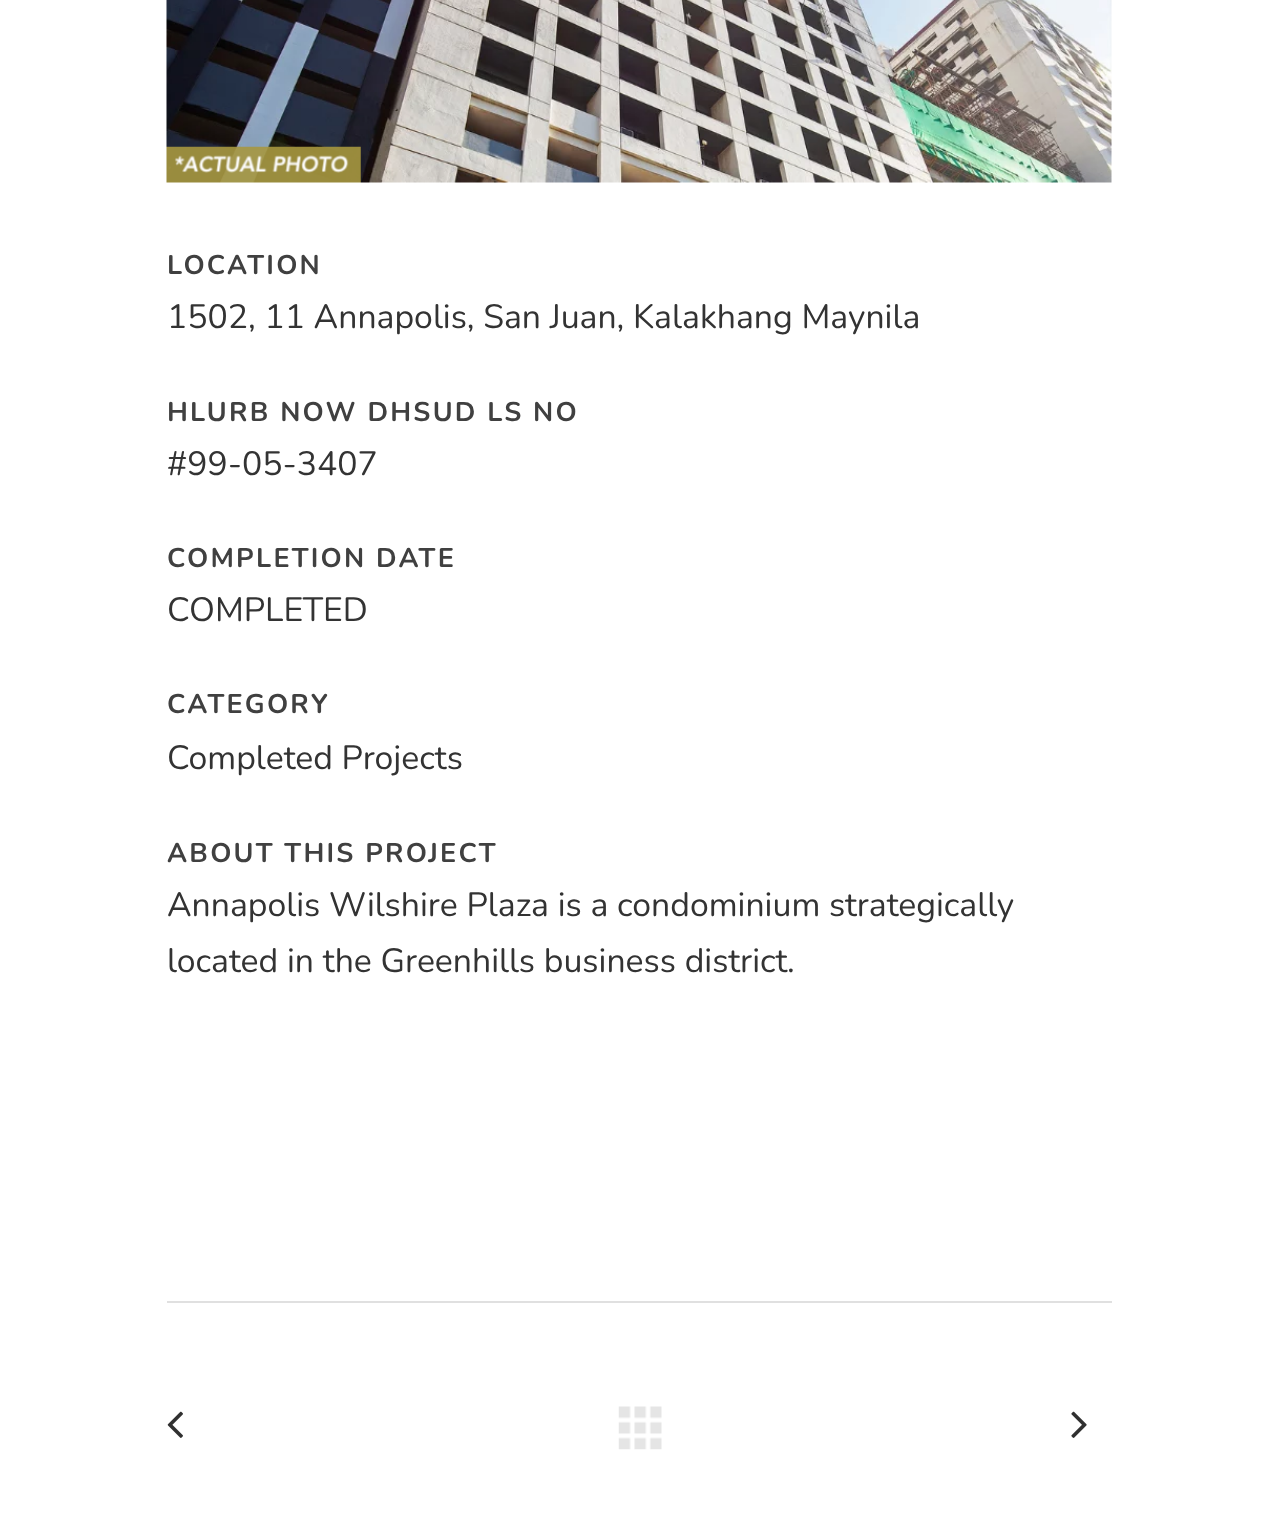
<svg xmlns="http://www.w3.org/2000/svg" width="1277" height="1521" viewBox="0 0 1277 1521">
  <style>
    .t1 { font: bold 27px Nunito; letter-spacing: 2.25px; fill: #404040; }
    .t2 { font: 33.75px Nunito; fill: #333; }
  </style>
  <rect width="100%" height="100%" fill="#fff"/>
  <image x="166" y="0" width="946" height="183" href="images/1.png"/>
  <text x="167" y="274" class="t1">LOCATION</text>
  <text x="167" y="328" class="t2">1502, 11 Annapolis, San Juan, Kalakhang Maynila</text>
  <text x="167" y="421" class="t1">HLURB NOW DHSUD LS NO</text>
  <text x="167" y="475" class="t2">#99-05-3407</text>
  <text x="167" y="567" class="t1">COMPLETION DATE</text>
  <text x="167" y="621" class="t2">COMPLETED</text>
  <text x="167" y="713" class="t1">CATEGORY</text>
  <text x="167" y="769" class="t2">Completed Projects</text>
  <text x="167" y="862" class="t1">ABOUT THIS PROJECT</text>
  <text x="167" y="916" class="t2">Annapolis Wilshire Plaza is a condominium strategically</text>
  <text x="167" y="972" class="t2">located in the Greenhills business district</text>
  <text x="787" y="972" class="t2">.</text>
  <rect x="167" y="1301" width="945" height="2" fill="#e0e0e0"/>
  <image x="167" y="1411" width="16" height="27" href="images/2.png"/>
  <image x="618" y="1406" width="44" height="44" href="images/3.png"/>
  <image x="1071" y="1411" width="16" height="27" href="images/4.png"/>
</svg>
